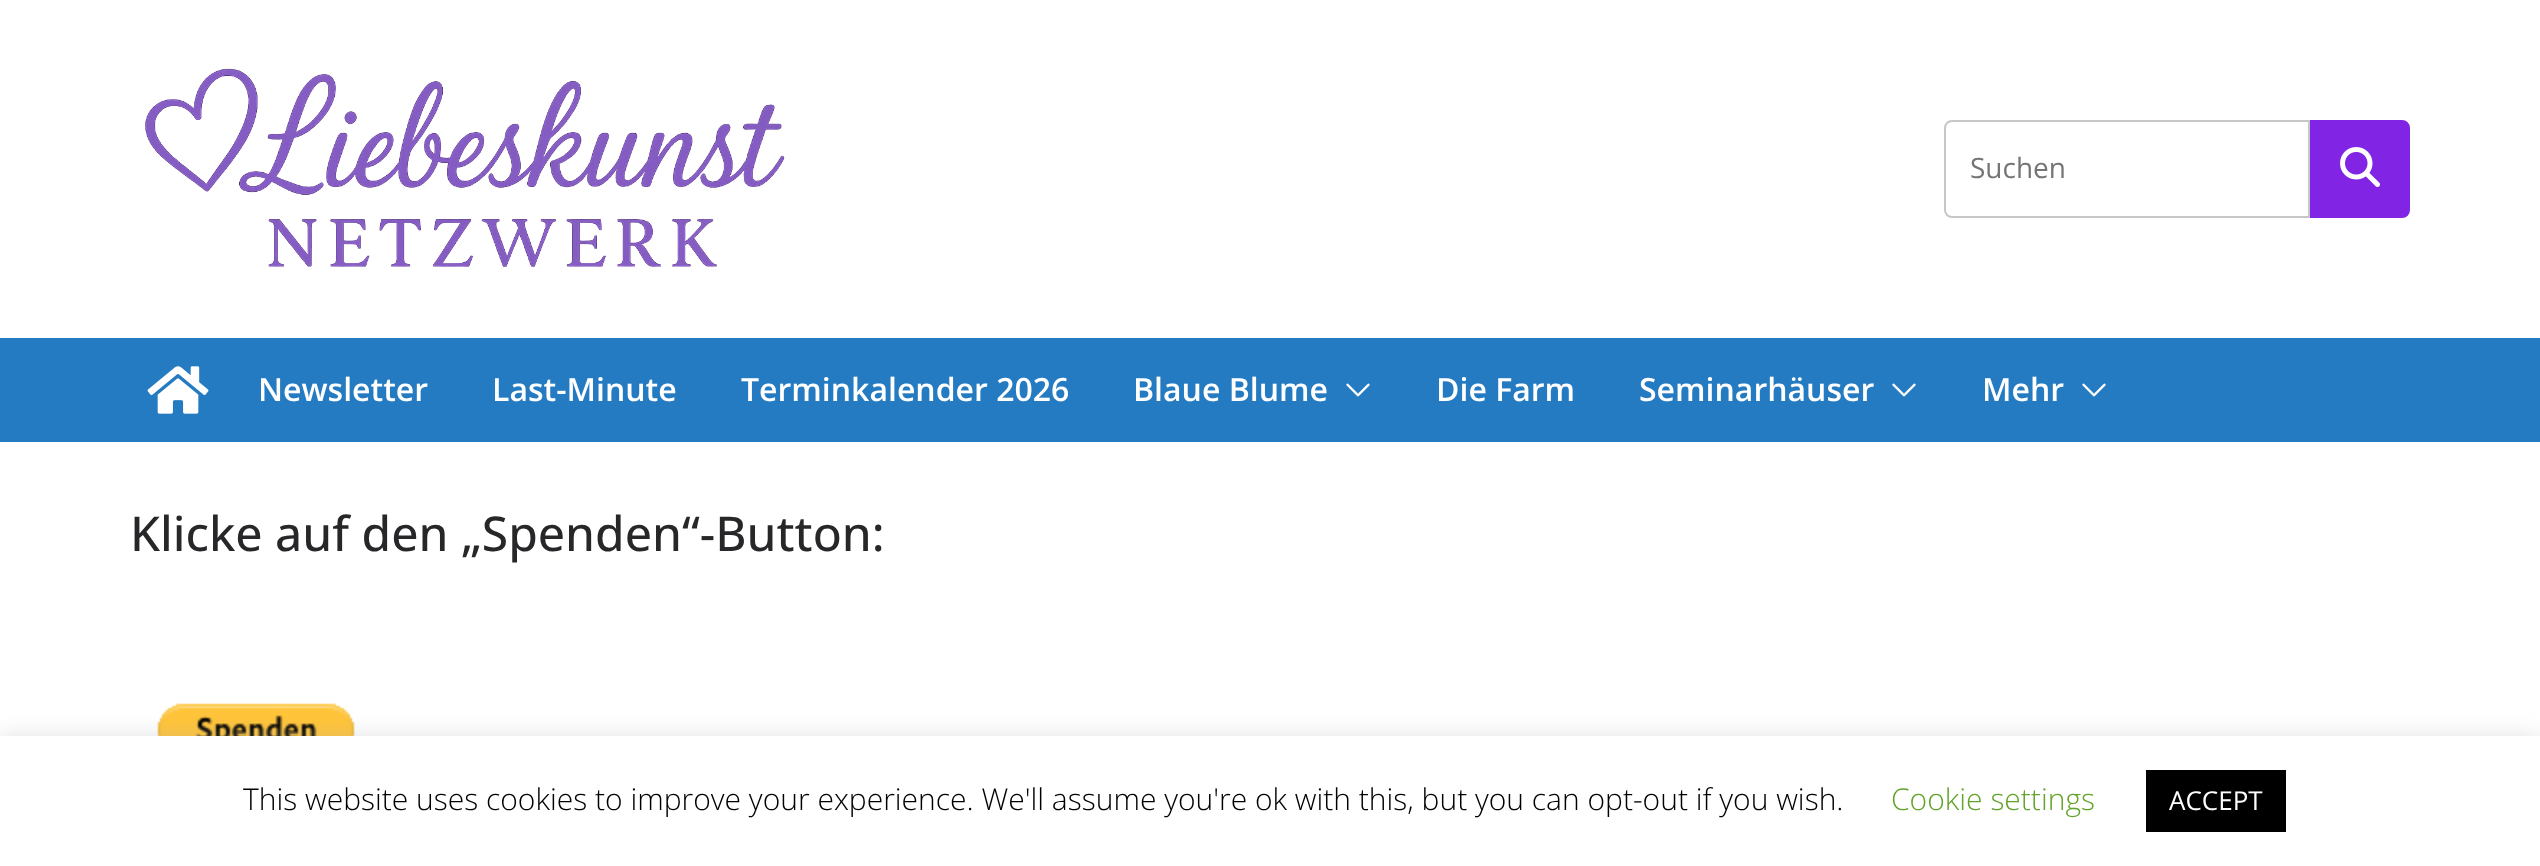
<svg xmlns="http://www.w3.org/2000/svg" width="2540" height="866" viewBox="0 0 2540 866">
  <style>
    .t1 { font: 28px Open Sans; fill: #757575; }
    .t2 { font: 600 32px Open Sans; fill: #fff; }
    .t3 { font: 500 48px Open Sans; fill: #27272a; }
    .t4 { font: 300 30px Open Sans; fill: #000; }
    .t5 { font: 300 30px Open Sans; fill: #62a329; }
    .t6 { font: 26px Open Sans; fill: #fff; }
  </style>
  <rect width="100%" height="100%" fill="#fff"/>
  <image x="145" y="68" width="640" height="199" href="images/1.png"/>
  <path d="M1952 121H2309V217H1952C1948 217 1945 214 1945 210V128C1945 124 1948 121 1952 121Z" fill="none" stroke="#c7c7c7" stroke-width="2"/>
  <text x="1970" y="178" class="t1">Suchen</text>
  <path d="M2311 121H2402C2406 121 2409 124 2409 128V210C2409 214 2406 217 2402 217H2311Z" fill="#8224e3" stroke="#8224e3" stroke-width="2"/>
  <image x="2340" y="147" width="40" height="40" href="images/2.png"/>
  <rect x="0" y="338" width="2540" height="104" fill="#257bc1"/>
  <image x="147" y="366" width="62" height="48" href="images/3.png"/>
  <text x="258" y="401" class="t2">Newsletter</text>
  <text x="492" y="401" class="t2">Last-Minute</text>
  <text x="741" y="401" class="t2">Terminkalender 2026</text>
  <text x="1133" y="401" class="t2">Blaue Blume</text>
  <image x="1346" y="383" width="24" height="14" href="images/4.png"/>
  <text x="1436" y="401" class="t2">Die Farm</text>
  <text x="1639" y="401" class="t2">Seminarhäuser</text>
  <image x="1892" y="383" width="24" height="14" href="images/4.png"/>
  <text x="1982" y="401" class="t2">Mehr</text>
  <image x="2082" y="383" width="24" height="14" href="images/4.png"/>
  <text x="130" y="551" class="t3">Klicke auf den „Spenden“-Button:</text>
  <image x="157" y="703" width="198" height="33" href="images/5.png"/>
  <rect x="0" y="734" width="2540" height="130" fill="#acabab4d" filter="blur(10px)"/>
  <rect x="0" y="736" width="2540" height="130" fill="#fff"/>
  <text x="243" y="810" class="t4">This website uses cookies to improve your experience. We'll assume you're ok with this, but you can opt-out if you wish.</text>
  <text x="1891" y="810" class="t5">Cookie settings</text>
  <rect x="2146" y="770" width="140" height="62" fill="#000"/>
  <text x="2169" y="810" class="t6">ACCEPT</text>
</svg>
